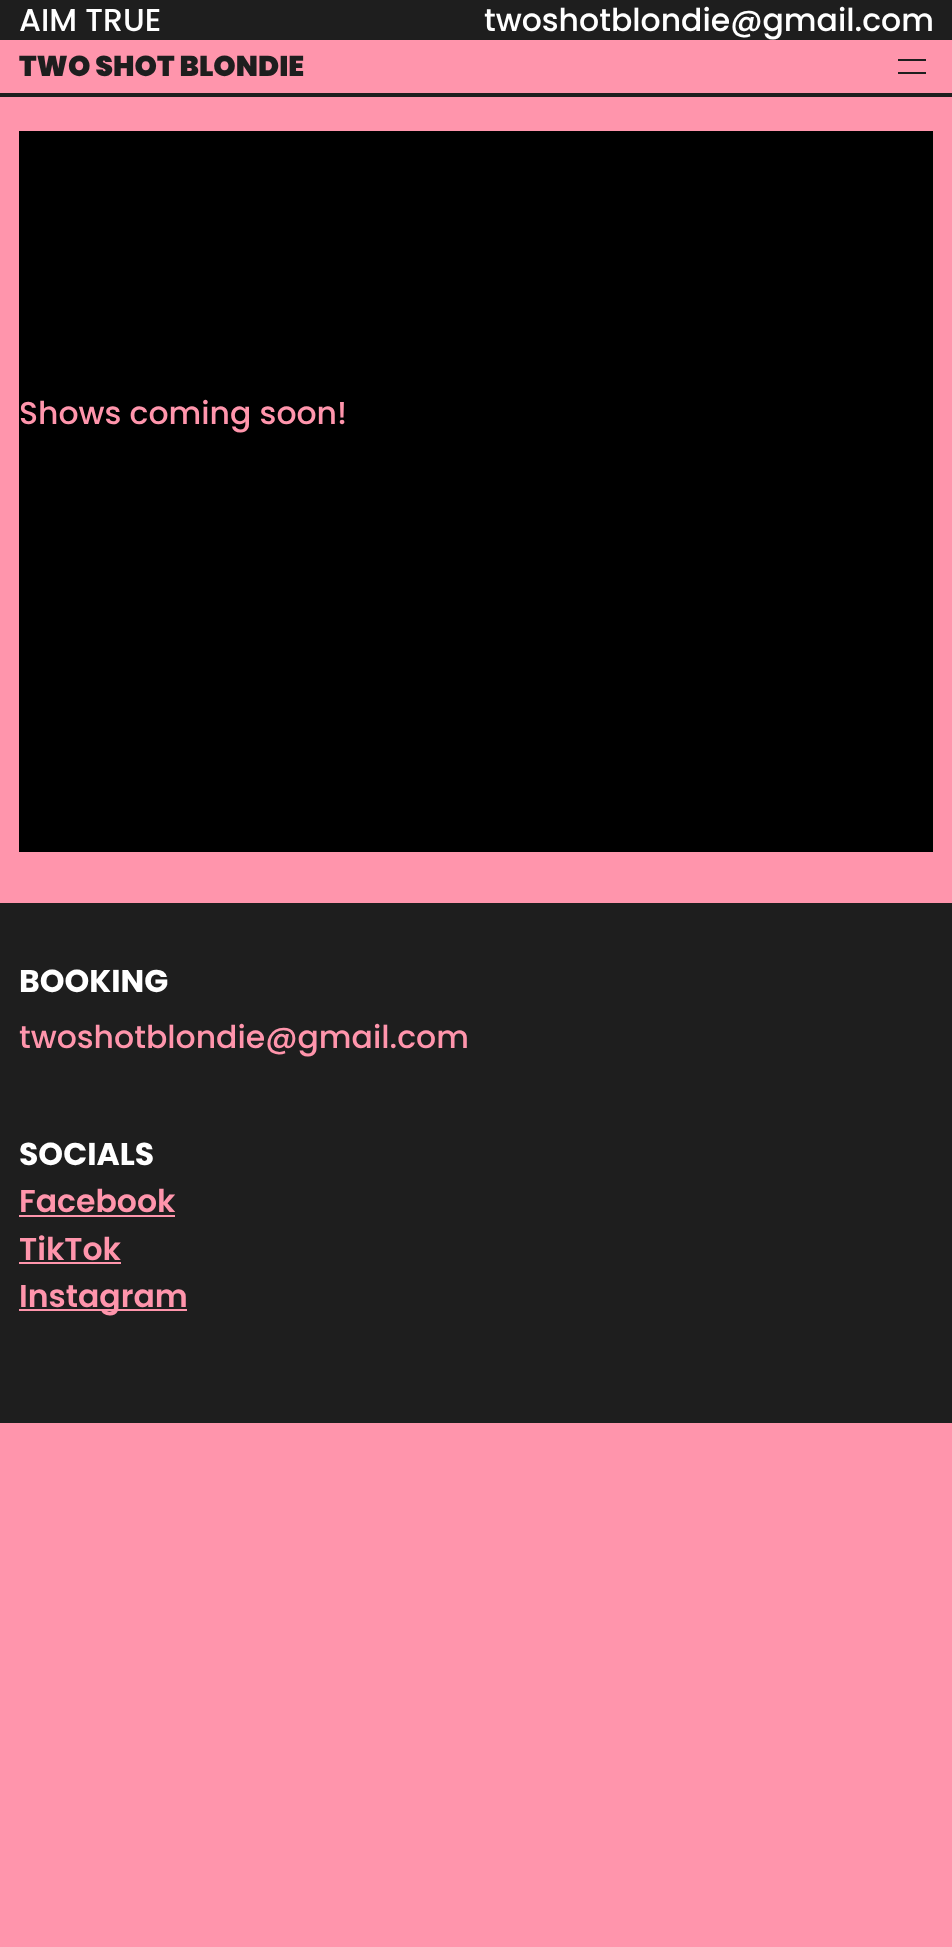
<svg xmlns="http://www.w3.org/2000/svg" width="952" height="1947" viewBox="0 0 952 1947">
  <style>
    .t1 { font: 500 31.5px Poppins; fill: #fff; }
    .t2 { font: 900 28.5px Poppins; fill: #1e1e1e; }
    .t3 { font: 500 31.5px Poppins; fill: #ff95ac; }
    .t4 { font: bold 31.5px Poppins; fill: #fff; }
    .t5 { font: 600 31.5px Poppins; fill: #ff95ac; }
  </style>
  <rect width="100%" height="100%" fill="#ff95ac"/>
  <rect x="0" y="0" width="952" height="40" fill="#1e1e1e"/>
  <text x="19" y="31" class="t1">AIM TRUE</text>
  <text x="484" y="31" class="t1">twoshotblondie@gmail.com</text>
  <text x="19" y="76" class="t2">TWO SHOT BLONDIE</text>
  <rect x="898" y="59" width="28" height="2" fill="#1e1e1e"/>
  <rect x="898" y="72" width="28" height="2" fill="#1e1e1e"/>
  <rect x="0" y="93" width="952" height="4" fill="#1e1e1e"/>
  <rect x="19" y="131" width="914" height="721" fill="#000"/>
  <text x="19" y="424" class="t3">Shows coming soon!</text>
  <rect x="0" y="903" width="952" height="520" fill="#1e1e1e"/>
  <text x="19" y="992" class="t4">BOOKING</text>
  <text x="19" y="1048" class="t3">twoshotblondie@gmail.com</text>
  <text x="19" y="1165" class="t4">SOCIALS</text>
  <text x="19" y="1212" class="t5">Facebook</text>
  <rect x="19" y="1215" width="156" height="2" fill="#ff95ac"/>
  <text x="19" y="1260" class="t5">TikTok</text>
  <rect x="19" y="1262" width="102" height="2" fill="#ff95ac"/>
  <rect x="19" y="1309" width="168" height="2" fill="#ff95ac"/>
  <text x="19" y="1307" class="t5">Instagram</text>
</svg>
